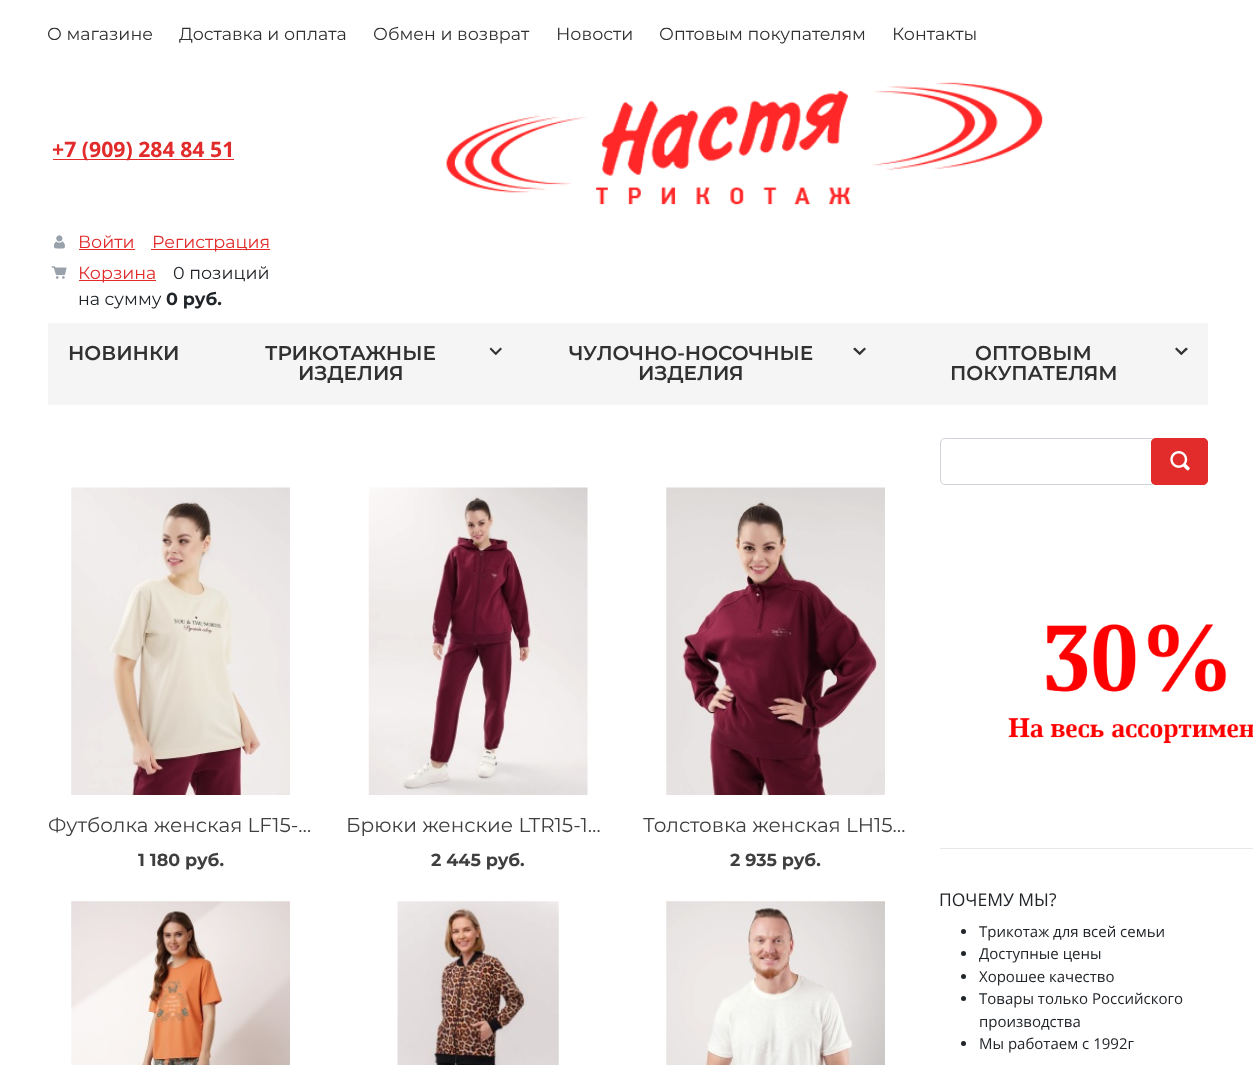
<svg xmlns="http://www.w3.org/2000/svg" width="1253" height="1065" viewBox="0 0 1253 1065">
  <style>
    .t1 { font: 17.5px Montserrat; fill: #313131; }
    .t2 { font: bold 21.25px Open Sans; fill: #e22b2b; }
    .t3 { font: 17.5px Montserrat; fill: #e22b2b; }
    .t4 { font: 17.5px Montserrat; fill: #212529; }
    .t5 { font: bold 17.5px Montserrat; fill: #212529; }
    .t6 { font: 600 20px Montserrat; fill: #313131; }
    .t7 { font: 20px Montserrat; fill: #3f3f3f; }
    .t8 { font: bold 17.5px Montserrat; fill: #3f3f3f; }
    .t9 { font: 17.5px Open Sans; fill: #212529; }
    .t10 { font: 15px Open Sans; fill: #212529; }
  </style>
  <rect width="100%" height="100%" fill="#fff"/>
  <text x="47" y="40" class="t1">О магазине</text>
  <text x="179" y="40" class="t1">Доставка и оплата</text>
  <text x="373" y="40" class="t1">Обмен и возврат</text>
  <text x="556" y="40" class="t1">Новости</text>
  <text x="659" y="40" class="t1">Оптовым покупателям</text>
  <text x="892" y="40" class="t1">Контакты</text>
  <rect x="53" y="159" width="181" height="1" fill="#e22b2b"/>
  <text x="52" y="157" class="t2">+7 (909) 284 84 51</text>
  <image x="446" y="82" width="597" height="123" href="images/1.png"/>
  <image x="54" y="235" width="11" height="14" href="images/2.png"/>
  <text x="78" y="248" class="t3">Войти</text>
  <rect x="79" y="249" width="56" height="1" fill="#e22b2b"/>
  <rect x="151" y="249" width="119" height="1" fill="#e22b2b"/>
  <text x="152" y="248" class="t3">Регистрация</text>
  <image x="51" y="266" width="16" height="13" href="images/3.png"/>
  <rect x="79" y="280" width="77" height="1" fill="#e22b2b"/>
  <text x="78" y="279" class="t3">Корзина</text>
  <text x="173" y="279" class="t4">0 позиций</text>
  <text x="78" y="305" class="t4">на сумму</text>
  <text x="166" y="305" class="t5">0 руб.</text>
  <rect x="48" y="323" width="1160" height="82" fill="#f5f5f5"/>
  <text x="68" y="360" class="t6">НОВИНКИ</text>
  <text x="265" y="360" class="t6">ТРИКОТАЖНЫЕ</text>
  <text x="298" y="380" class="t6">ИЗДЕЛИЯ</text>
  <path d="M494.5 353.5L500.5 347.5L502 349L496 355Z" fill="#333"/>
  <path d="M491 347.5L497 353.5L495.5 355L489.5 349Z" fill="#333"/>
  <text x="569" y="360" class="t6">ЧУЛОЧНО-НОСОЧНЫЕ</text>
  <text x="638" y="380" class="t6">ИЗДЕЛИЯ</text>
  <path d="M858 353.5L864.5 347.5L866 349L860 355Z" fill="#333"/>
  <path d="M855 347.5L861 353.5L859.5 355L853 349Z" fill="#333"/>
  <text x="975" y="360" class="t6">ОПТОВЫМ</text>
  <text x="950" y="380" class="t6">ПОКУПАТЕЛЯМ</text>
  <path d="M1180 353.5L1186 347.5L1188 349L1181.5 355Z" fill="#333"/>
  <path d="M1176.5 347.5L1183 353.5L1181 355L1175 349Z" fill="#333"/>
  <image x="71" y="487" width="219" height="308" href="images/4.png"/>
  <text x="48" y="832" class="t7">Футболка женская LF15-…</text>
  <text x="138" y="866" class="t8">1 180 руб.</text>
  <image x="368" y="487" width="220" height="308" href="images/5.png"/>
  <text x="346" y="832" class="t7">Брюки женские LTR15-1…</text>
  <text x="431" y="866" class="t8">2 445 руб.</text>
  <image x="666" y="487" width="219" height="308" href="images/6.png"/>
  <text x="643" y="832" class="t7">Толстовка женская LH15…</text>
  <text x="730" y="866" class="t8">2 935 руб.</text>
  <image x="71" y="901" width="219" height="164" href="images/7.png"/>
  <image x="397" y="901" width="162" height="164" href="images/8.png"/>
  <image x="666" y="901" width="219" height="164" href="images/9.png"/>
  <path d="M945 438.5H1152.5V484.5H945C942.5 484.5 940.5 482.5 940.5 480V443C940.5 440.5 942.5 438.5 945 438.5Z" fill="none" stroke="#ced4da"/>
  <rect x="1151" y="438" width="57" height="47" rx="5" fill="#e22b2b"/>
  <image x="1170" y="451" width="20" height="20" href="images/10.png"/>
  <rect x="1151.5" y="438.5" width="56" height="46" rx="4.5" fill="none" stroke="#e22b2b"/>
  <image x="940" y="624" width="313" height="225" href="images/11.png"/>
  <text x="939" y="906" class="t9">ПОЧЕМУ МЫ?</text>
  <circle cx="963.5" cy="931.5" r="2.5" fill="#212529"/>
  <text x="979" y="937" class="t10">Трикотаж для всей семьи</text>
  <circle cx="963.5" cy="953.5" r="2.5" fill="#212529"/>
  <text x="979" y="959" class="t10">Доступные цены</text>
  <circle cx="963.5" cy="976.5" r="2.5" fill="#212529"/>
  <text x="979" y="982" class="t10">Хорошее качество</text>
  <circle cx="963.5" cy="998.5" r="2.5" fill="#212529"/>
  <text x="979" y="1004" class="t10">Товары только Российского</text>
  <text x="979" y="1027" class="t10">производства</text>
  <circle cx="963.5" cy="1043.5" r="2.5" fill="#212529"/>
  <text x="979" y="1049" class="t10">Мы работаем с 1992г</text>
</svg>
